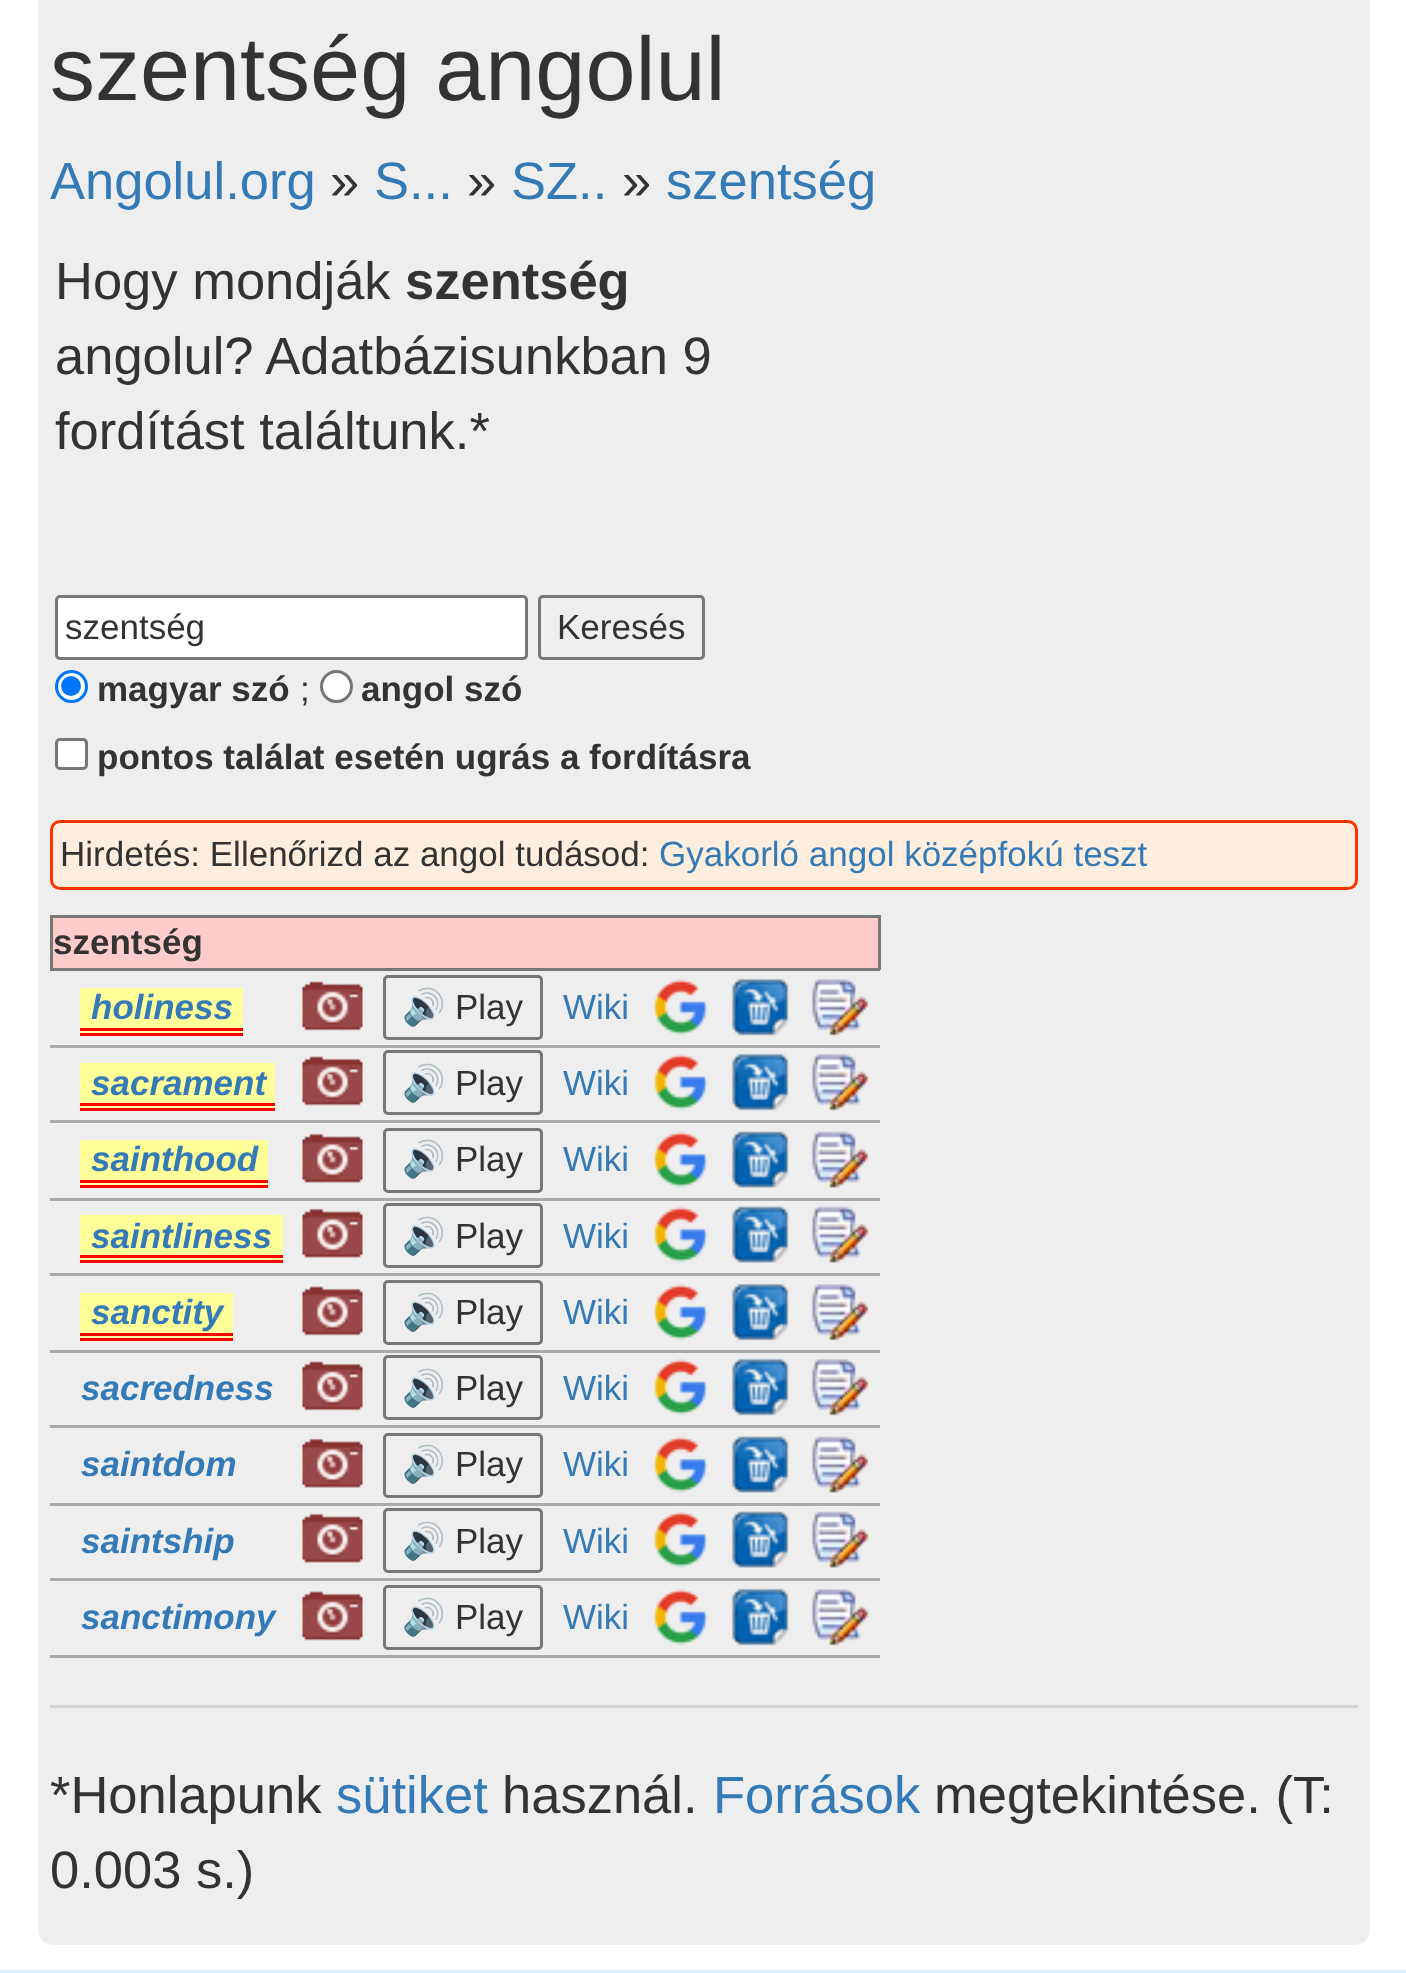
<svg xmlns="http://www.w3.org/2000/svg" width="1406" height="1973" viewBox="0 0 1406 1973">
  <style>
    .t1 { font: 90px Liberation Sans; fill: #333; }
    .t2 { font: 52.5px Liberation Sans; fill: #337ab7; }
    .t3 { font: 52.5px Liberation Sans; fill: #333; }
    .t4 { font: bold 52.5px Liberation Sans; fill: #333; }
    .t5 { font: 35px Liberation Sans; fill: #333; }
    .t6 { font: bold 35px Liberation Sans; fill: #333; }
    .t7 { font: 35px Liberation Sans; fill: #337ab7; }
    .t8 { font: italic bold 35px Liberation Sans; fill: #337ab7; }
    .t9 { font: 35px Noto Color Emoji; fill: #333; }
  </style>
  <rect width="100%" height="100%" fill="#fff"/>
  <rect x="38" y="-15" width="1332" height="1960" rx="15" fill="#eee"/>
  <text x="50" y="100" class="t1">szentség angolul</text>
  <text x="50" y="199" class="t2">Angolul.org</text>
  <text x="330" y="199" class="t3">»</text>
  <text x="374" y="199" class="t2">S...</text>
  <text x="467" y="199" class="t3">»</text>
  <text x="511" y="199" class="t2">SZ..</text>
  <text x="622" y="199" class="t3">»</text>
  <text x="666" y="199" class="t2">szentség</text>
  <text x="55" y="299" class="t3">Hogy mondják</text>
  <text x="405" y="299" class="t4">szentség</text>
  <text x="55" y="374" class="t3">angolul? Adatbázisunkban 9</text>
  <text x="55" y="449" class="t3">fordítást találtunk.*</text>
  <rect x="56.5" y="596.5" width="470" height="62" rx="3.5" fill="#fff" stroke="#767676" stroke-width="3"/>
  <text x="65" y="639" class="t5">szentség</text>
  <rect x="539.5" y="596.5" width="164" height="62" rx="3.5" fill="none" stroke="#767676" stroke-width="3"/>
  <text x="557" y="639" class="t5">Keresés</text>
  <circle cx="71.5" cy="686.5" r="15" fill="#fff" stroke="#0075ff" stroke-width="3"/>
  <circle cx="71" cy="686" r="10" fill="#0075ff"/>
  <text x="97" y="701" class="t6">magyar szó</text>
  <text x="300" y="701" class="t5">;</text>
  <circle cx="336.5" cy="686.5" r="15" fill="#fff" stroke="#767676" stroke-width="3"/>
  <text x="361" y="701" class="t6">angol szó</text>
  <rect x="56.5" y="739.5" width="30" height="29" rx="3.5" fill="#fff" stroke="#767676" stroke-width="3"/>
  <text x="97" y="769" class="t6">pontos találat esetén ugrás a fordításra</text>
  <rect x="51.5" y="821.5" width="1305" height="67" rx="8.5" fill="#fed" stroke="#f30" stroke-width="3"/>
  <text x="60" y="866" class="t5">Hirdetés: Ellenőrizd az angol tudásod:</text>
  <text x="659" y="866" class="t7">Gyakorló angol középfokú teszt</text>
  <rect x="53" y="918" width="825" height="50" fill="#fcc"/>
  <rect x="50" y="915" width="830" height="3" fill="#777"/>
  <rect x="878" y="915" width="3" height="55" fill="#777"/>
  <rect x="50" y="968" width="830" height="3" fill="#777"/>
  <rect x="50" y="915" width="3" height="55" fill="#777"/>
  <text x="53" y="954" class="t6">szentség</text>
  <rect x="50" y="1045" width="830" height="3" fill="#aaa"/>
  <rect x="80" y="988" width="163" height="45" fill="#ff9"/>
  <text x="91" y="1019" class="t8">holiness</text>
  <rect x="80" y="1028" width="163" height="3" fill="#f00"/>
  <rect x="80" y="1033" width="163" height="3" fill="#f00"/>
  <image x="302" y="981" width="61" height="50" href="images/1.png"/>
  <rect x="384.5" y="976.5" width="157" height="62" rx="3.5" fill="none" stroke="#767676" stroke-width="3"/>
  <text x="402" y="1019" class="t9">🔊</text>
  <text x="455" y="1019" class="t5">Play</text>
  <text x="563" y="1019" class="t7">Wiki</text>
  <image x="654" y="979" width="54" height="57" href="images/2.png"/>
  <image x="731" y="978" width="58" height="58" href="images/3.png"/>
  <image x="811" y="979" width="58" height="57" href="images/4.png"/>
  <rect x="50" y="1120" width="830" height="3" fill="#aaa"/>
  <rect x="80" y="1063" width="195" height="45" fill="#ff9"/>
  <text x="91" y="1095" class="t8">sacrament</text>
  <rect x="80" y="1103" width="195" height="3" fill="#f00"/>
  <rect x="80" y="1108" width="195" height="3" fill="#f00"/>
  <image x="302" y="1056" width="61" height="50" href="images/5.png"/>
  <rect x="384.5" y="1051.5" width="157" height="62" rx="3.5" fill="none" stroke="#767676" stroke-width="3"/>
  <text x="402" y="1095" class="t9">🔊</text>
  <text x="455" y="1095" class="t5">Play</text>
  <text x="563" y="1095" class="t7">Wiki</text>
  <image x="654" y="1054" width="54" height="57" href="images/6.png"/>
  <image x="731" y="1053" width="58" height="58" href="images/7.png"/>
  <image x="811" y="1054" width="58" height="57" href="images/8.png"/>
  <rect x="50" y="1198" width="830" height="3" fill="#aaa"/>
  <rect x="80" y="1140" width="188" height="45" fill="#ff9"/>
  <text x="91" y="1171" class="t8">sainthood</text>
  <rect x="80" y="1180" width="188" height="3" fill="#f00"/>
  <rect x="80" y="1185" width="188" height="3" fill="#f00"/>
  <image x="302" y="1133" width="61" height="50" href="images/9.png"/>
  <rect x="384.5" y="1129.5" width="157" height="62" rx="3.5" fill="none" stroke="#767676" stroke-width="3"/>
  <text x="402" y="1171" class="t9">🔊</text>
  <text x="455" y="1171" class="t5">Play</text>
  <text x="563" y="1171" class="t7">Wiki</text>
  <image x="654" y="1131" width="54" height="57" href="images/10.png"/>
  <image x="731" y="1131" width="58" height="57" href="images/11.png"/>
  <image x="811" y="1131" width="58" height="57" href="images/12.png"/>
  <rect x="50" y="1273" width="830" height="3" fill="#aaa"/>
  <rect x="80" y="1215" width="203" height="45" fill="#ff9"/>
  <text x="91" y="1248" class="t8">saintliness</text>
  <rect x="80" y="1255" width="203" height="3" fill="#f00"/>
  <rect x="80" y="1260" width="203" height="3" fill="#f00"/>
  <image x="302" y="1208" width="61" height="50" href="images/9.png"/>
  <rect x="384.5" y="1204.5" width="157" height="62" rx="3.5" fill="none" stroke="#767676" stroke-width="3"/>
  <text x="402" y="1248" class="t9">🔊</text>
  <text x="455" y="1248" class="t5">Play</text>
  <text x="563" y="1248" class="t7">Wiki</text>
  <image x="654" y="1206" width="54" height="57" href="images/10.png"/>
  <image x="731" y="1206" width="58" height="57" href="images/11.png"/>
  <image x="811" y="1206" width="58" height="57" href="images/12.png"/>
  <rect x="50" y="1350" width="830" height="3" fill="#aaa"/>
  <rect x="80" y="1293" width="153" height="45" fill="#ff9"/>
  <text x="91" y="1324" class="t8">sanctity</text>
  <rect x="80" y="1333" width="153" height="3" fill="#f00"/>
  <rect x="80" y="1338" width="153" height="3" fill="#f00"/>
  <image x="302" y="1286" width="61" height="50" href="images/5.png"/>
  <rect x="384.5" y="1281.5" width="157" height="62" rx="3.5" fill="none" stroke="#767676" stroke-width="3"/>
  <text x="402" y="1324" class="t9">🔊</text>
  <text x="455" y="1324" class="t5">Play</text>
  <text x="563" y="1324" class="t7">Wiki</text>
  <image x="654" y="1284" width="54" height="57" href="images/6.png"/>
  <image x="731" y="1283" width="58" height="58" href="images/7.png"/>
  <image x="811" y="1284" width="58" height="57" href="images/8.png"/>
  <rect x="50" y="1425" width="830" height="3" fill="#aaa"/>
  <text x="81" y="1400" class="t8">sacredness</text>
  <image x="302" y="1361" width="61" height="50" href="images/13.png"/>
  <rect x="384.5" y="1356.5" width="157" height="62" rx="3.5" fill="none" stroke="#767676" stroke-width="3"/>
  <text x="402" y="1400" class="t9">🔊</text>
  <text x="455" y="1400" class="t5">Play</text>
  <text x="563" y="1400" class="t7">Wiki</text>
  <image x="654" y="1359" width="54" height="57" href="images/14.png"/>
  <image x="731" y="1358" width="58" height="58" href="images/15.png"/>
  <image x="811" y="1359" width="58" height="57" href="images/16.png"/>
  <rect x="50" y="1503" width="830" height="3" fill="#aaa"/>
  <text x="81" y="1476" class="t8">saintdom</text>
  <image x="302" y="1438" width="61" height="50" href="images/9.png"/>
  <rect x="384.5" y="1434.5" width="157" height="62" rx="3.5" fill="none" stroke="#767676" stroke-width="3"/>
  <text x="402" y="1476" class="t9">🔊</text>
  <text x="455" y="1476" class="t5">Play</text>
  <text x="563" y="1476" class="t7">Wiki</text>
  <image x="654" y="1436" width="54" height="57" href="images/10.png"/>
  <image x="731" y="1436" width="58" height="57" href="images/11.png"/>
  <image x="811" y="1436" width="58" height="57" href="images/12.png"/>
  <rect x="50" y="1578" width="830" height="3" fill="#aaa"/>
  <text x="81" y="1553" class="t8">saintship</text>
  <image x="302" y="1513" width="61" height="50" href="images/9.png"/>
  <rect x="384.5" y="1509.5" width="157" height="62" rx="3.5" fill="none" stroke="#767676" stroke-width="3"/>
  <text x="402" y="1553" class="t9">🔊</text>
  <text x="455" y="1553" class="t5">Play</text>
  <text x="563" y="1553" class="t7">Wiki</text>
  <image x="654" y="1511" width="54" height="57" href="images/10.png"/>
  <image x="731" y="1511" width="58" height="57" href="images/11.png"/>
  <image x="811" y="1511" width="58" height="57" href="images/12.png"/>
  <rect x="50" y="1655" width="830" height="3" fill="#aaa"/>
  <text x="81" y="1629" class="t8">sanctimony</text>
  <image x="302" y="1591" width="61" height="50" href="images/5.png"/>
  <rect x="384.5" y="1586.5" width="157" height="62" rx="3.5" fill="none" stroke="#767676" stroke-width="3"/>
  <text x="402" y="1629" class="t9">🔊</text>
  <text x="455" y="1629" class="t5">Play</text>
  <text x="563" y="1629" class="t7">Wiki</text>
  <image x="654" y="1589" width="54" height="57" href="images/6.png"/>
  <image x="731" y="1588" width="58" height="58" href="images/7.png"/>
  <image x="811" y="1589" width="58" height="57" href="images/8.png"/>
  <rect x="50" y="1705" width="1308" height="3" fill="#d5d5d5"/>
  <text x="50" y="1813" class="t3">*Honlapunk</text>
  <text x="336" y="1813" class="t2">sütiket</text>
  <text x="502" y="1813" class="t3">használ.</text>
  <text x="713" y="1813" class="t2">Források</text>
  <text x="934" y="1813" class="t3">megtekintése. (T:</text>
  <text x="50" y="1888" class="t3">0.003 s.)</text>
  <rect x="0" y="1970" width="1406" height="3" fill="#def"/>
</svg>
